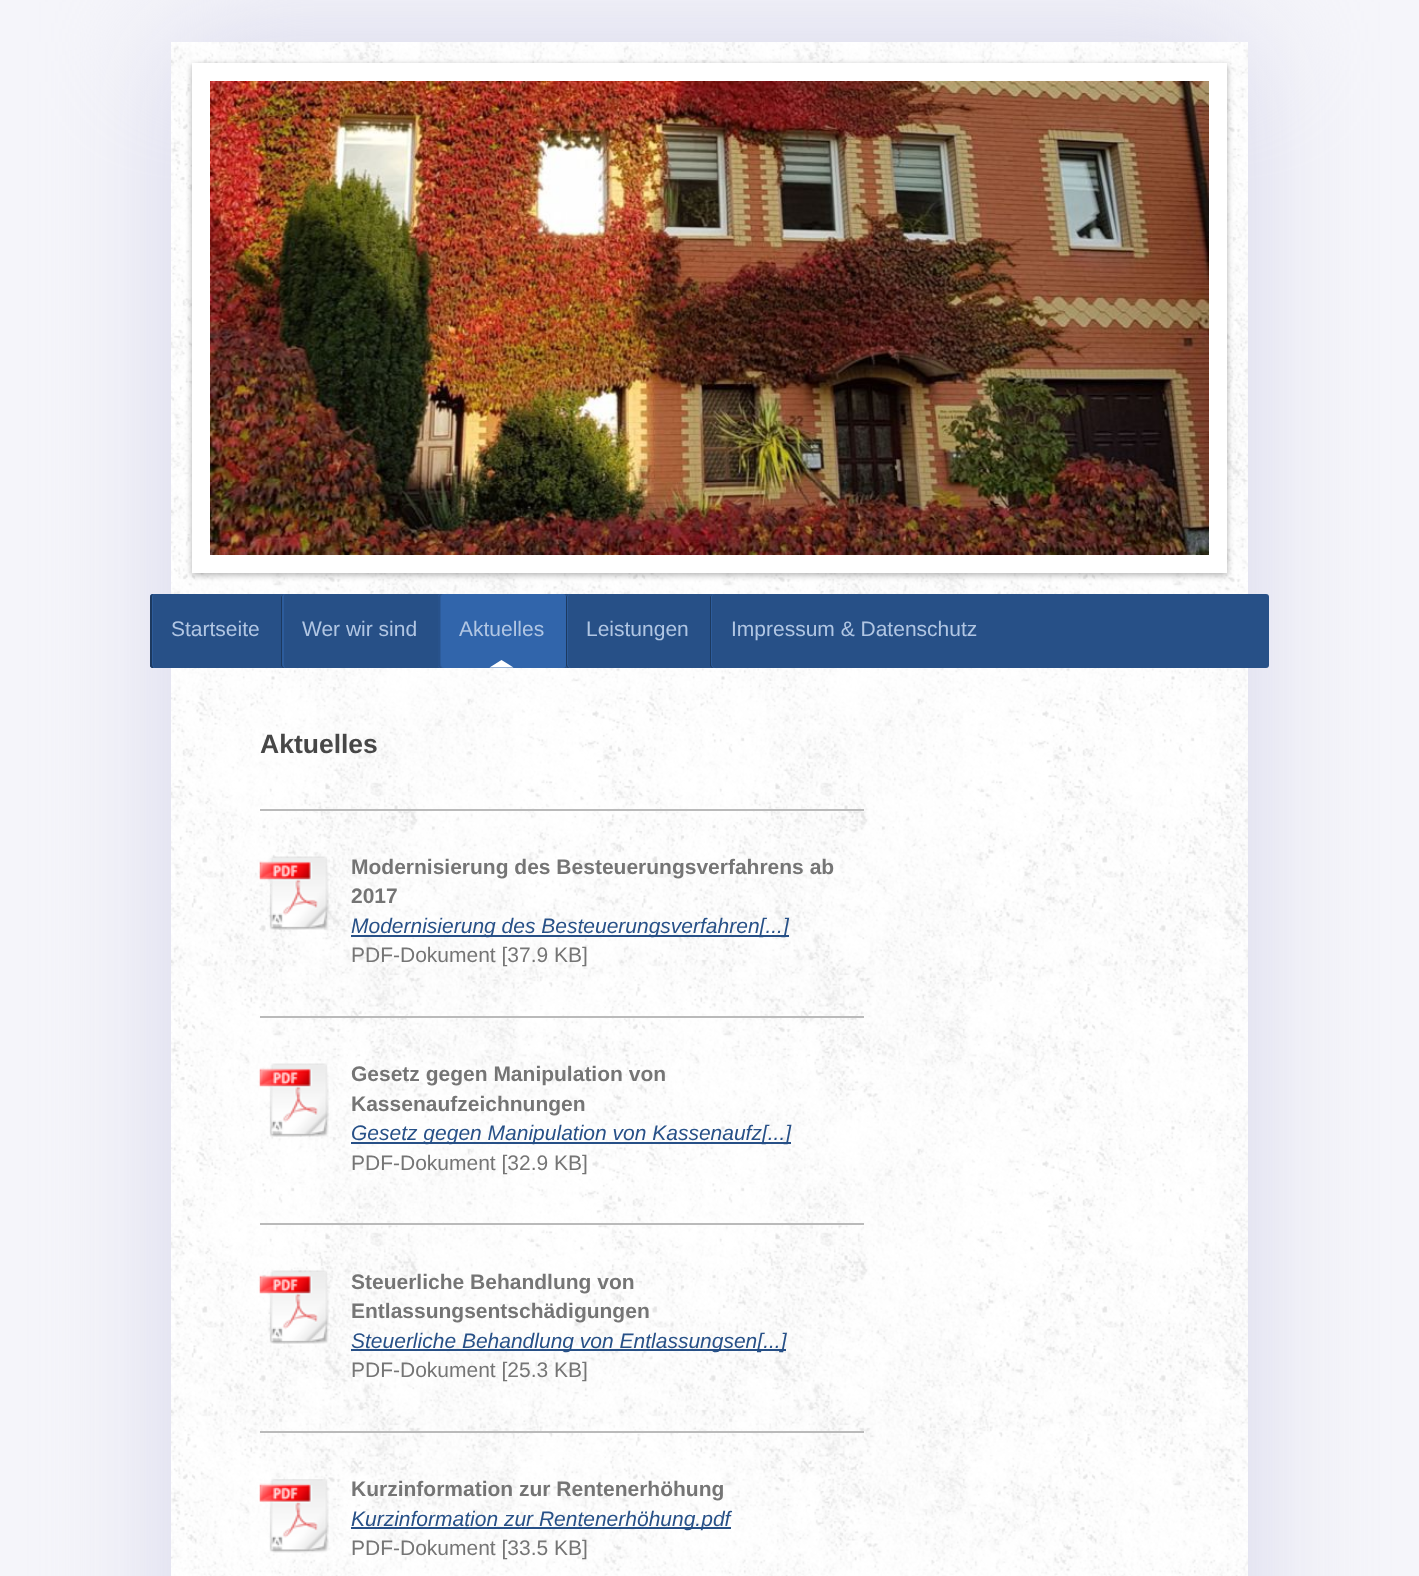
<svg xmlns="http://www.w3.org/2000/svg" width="1419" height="1576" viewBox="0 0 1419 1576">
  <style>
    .t1 { font: 21px Liberation Sans; fill: #b1c6e3; }
    .t2 { font: bold 26.5px Liberation Sans; fill: #474747; }
    .t3 { font: bold 21px Liberation Sans; fill: #757575; }
    .t4 { font: italic 21px Liberation Sans; fill: #275087; }
    .t5 { font: 21px Liberation Sans; fill: #757575; }
  </style>
  <rect width="100%" height="100%" fill="#f5f5fa"/>
  <rect x="171" y="42" width="1077" height="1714" fill="#d6d6eb" filter="blur(60px)"/>
  <rect x="171" y="42" width="1077" height="1534" fill="#fff"/>
  <image x="171" y="42" width="1077" height="1534" href="images/1.png"/>
  <rect x="192" y="65" width="1035" height="510" fill="#0000004d" filter="blur(3px)"/>
  <rect x="201" y="72" width="1017" height="492" fill="none" stroke="#fff" stroke-width="18"/>
  <image x="210" y="81" width="999" height="474" href="images/2.png"/>
  <rect x="150" y="594" width="1119" height="74" rx="3" fill="#275087"/>
  <path d="M153 594C151 594 150 595 150 597V665C150 667 151 668 153 668H156C154 668 153 666 153 664V597C153 595 154 594 156 594Z" fill="#2d5c9b"/>
  <path d="M153 594L151 595L150 597V666L152 668H154C153 668 152 666 152 664V597C152 595 153 594 154 594Z" fill="#1c395f"/>
  <text x="171" y="636" class="t1">Startseite</text>
  <path d="M284 594C282 594 281 595 281 597V665C281 667 282 668 284 668H286C285 668 284 666 284 664V597C284 595 285 594 286 594Z" fill="#2d5c9b"/>
  <path d="M284 594L282 595L281 597V666L283 668H285C283 668 282 666 282 664V597C282 595 283 594 285 594Z" fill="#1c395f"/>
  <text x="302" y="636" class="t1">Wer wir sind</text>
  <rect x="438" y="594" width="128" height="74" rx="3" fill="#3165ab"/>
  <path d="M441 594C439 594 438 595 438 597V665C438 667 439 668 441 668H444C442 668 441 666 441 664V597C441 595 442 594 444 594Z" fill="#2d5c9b"/>
  <path d="M441 594L439 595L438 597V666L440 668H442C441 668 440 666 440 664V597C440 595 441 594 442 594Z" fill="#28528b"/>
  <text x="459" y="636" class="t1">Aktuelles</text>
  <path d="M513.5 667.5H489.5L501.5 660Z" fill="#fff"/>
  <path d="M569 594C567 594 566 595 566 597V665C566 667 567 668 569 668H572C570 668 568 666 568 664V597C568 595 570 594 572 594Z" fill="#2d5c9b"/>
  <path d="M569 594L567 595L566 597V666L568 668H570C568 668 567 666 567 664V597C567 595 568 594 570 594Z" fill="#1c395f"/>
  <text x="586" y="636" class="t1">Leistungen</text>
  <path d="M713 594C711 594 710 595 710 597V665C710 667 711 668 713 668H716C714 668 712 666 712 664V597C712 595 714 594 716 594Z" fill="#2d5c9b"/>
  <path d="M713 594L711 595L710 597V666L712 668H714C712 668 711 666 711 664V597C711 595 712 594 714 594Z" fill="#1c395f"/>
  <text x="731" y="636" class="t1">Impressum &amp; Datenschutz</text>
  <text x="260" y="753" class="t2">Aktuelles</text>
  <rect x="260" y="809" width="604" height="2" fill="#bababa"/>
  <image x="259" y="856" width="70" height="74" href="images/3.png"/>
  <text x="351" y="874" class="t3">Modernisierung des Besteuerungsverfahrens ab</text>
  <text x="351" y="903" class="t3">2017</text>
  <rect x="351" y="935" width="438" height="2" fill="#275087"/>
  <text x="351" y="933" class="t4">Modernisierung des Besteuerungsverfahren[...]</text>
  <text x="351" y="962" class="t5">PDF-Dokument [37.9 KB]</text>
  <rect x="260" y="1016" width="604" height="2" fill="#bababa"/>
  <image x="259" y="1063" width="70" height="74" href="images/4.png"/>
  <text x="351" y="1081" class="t3">Gesetz gegen Manipulation von</text>
  <text x="351" y="1111" class="t3">Kassenaufzeichnungen</text>
  <rect x="351" y="1142" width="440" height="2" fill="#275087"/>
  <text x="351" y="1140" class="t4">Gesetz gegen Manipulation von Kassenaufz[...]</text>
  <text x="351" y="1170" class="t5">PDF-Dokument [32.9 KB]</text>
  <rect x="260" y="1223" width="604" height="2" fill="#bababa"/>
  <image x="259" y="1270" width="70" height="74" href="images/5.png"/>
  <text x="351" y="1289" class="t3">Steuerliche Behandlung von</text>
  <text x="351" y="1318" class="t3">Entlassungsentschädigungen</text>
  <rect x="351" y="1349" width="435" height="2" fill="#275087"/>
  <text x="351" y="1348" class="t4">Steuerliche Behandlung von Entlassungsen[...]</text>
  <text x="351" y="1377" class="t5">PDF-Dokument [25.3 KB]</text>
  <rect x="260" y="1431" width="604" height="2" fill="#bababa"/>
  <image x="259" y="1479" width="70" height="74" href="images/6.png"/>
  <text x="351" y="1496" class="t3">Kurzinformation zur Rentenerhöhung</text>
  <rect x="351" y="1527" width="380" height="2" fill="#275087"/>
  <text x="351" y="1526" class="t4">Kurzinformation zur Rentenerhöhung.pdf</text>
  <text x="351" y="1555" class="t5">PDF-Dokument [33.5 KB]</text>
</svg>
